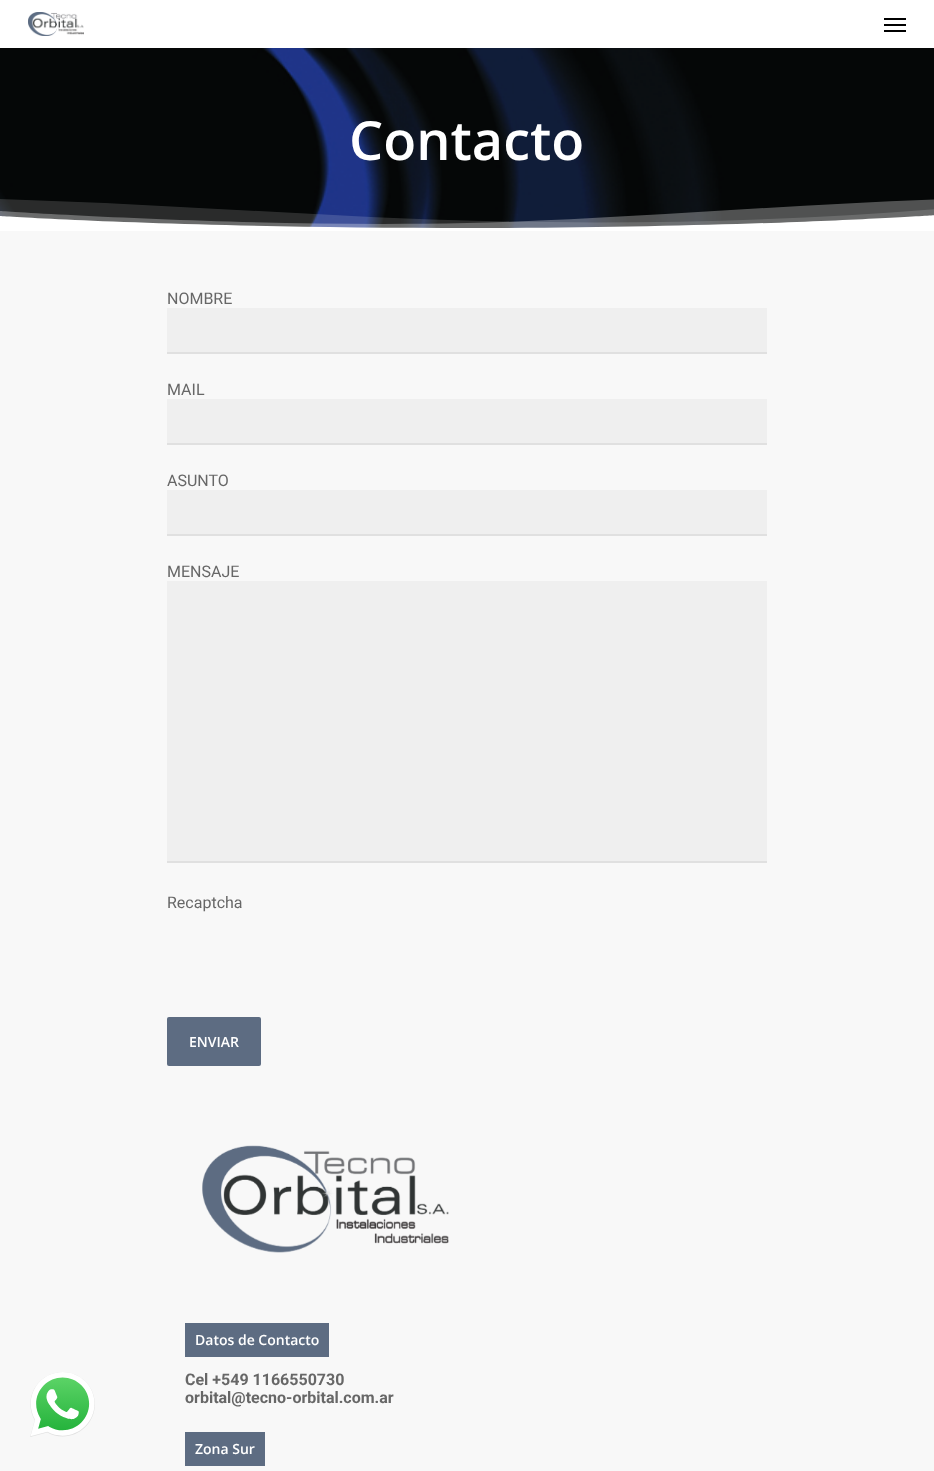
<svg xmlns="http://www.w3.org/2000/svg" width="934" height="1471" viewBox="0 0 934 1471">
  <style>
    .t1 { font: 600 54px Open Sans; fill: #fff; }
    .t2 { font: 16px Roboto; fill: #676767; }
    .t3 { font: 600 14px Open Sans; fill: #fff; }
    .t4 { font: bold 16px Roboto; fill: #676767; }
  </style>
  <defs>
    <clipPath id="clip1"><rect x="0" y="194" width="934" height="37"/></clipPath>
  </defs>
  <rect width="100%" height="100%" fill="#fff"/>
  <image x="28" y="12" width="56" height="24" href="images/1.png"/>
  <rect x="884" y="18" width="22" height="2" fill="#000"/>
  <rect x="884" y="30" width="22" height="2" fill="#000"/>
  <rect x="884" y="24" width="22" height="2" fill="#000"/>
  <rect x="0" y="231" width="934" height="1240" fill="#f8f8f8"/>
  <image x="30" y="1372" width="65" height="65" href="images/2.png"/>
  <image x="0" y="48" width="934" height="180" href="images/3.png"/>
  <text x="349" y="160" class="t1">Contacto</text>
  <g clip-path="url(#clip1)">
    <path d="M0 199L105 203L371 217C559 226 749 224 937 209L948 220L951 233H0Z" fill="#ffffff26"/>
    <path d="M0 211C0 211 253 228 467 223C614 220 775 205 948 199V232H0Z" fill="#ffffff4d"/>
    <path d="M0 216C0 216 176 228 474 228C745 228 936 215 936 215V232H0Z" fill="#fff"/>
  </g>
  <text x="167" y="304" class="t2">NOMBRE</text>
  <rect x="167" y="308" width="600" height="44" fill="#efefef"/>
  <rect x="167" y="352" width="600" height="2" fill="#e0e0e0"/>
  <text x="167" y="395" class="t2">MAIL</text>
  <rect x="167" y="399" width="600" height="44" fill="#efefef"/>
  <rect x="167" y="443" width="600" height="2" fill="#e0e0e0"/>
  <text x="167" y="486" class="t2">ASUNTO</text>
  <rect x="167" y="490" width="600" height="44" fill="#efefef"/>
  <rect x="167" y="534" width="600" height="2" fill="#e0e0e0"/>
  <text x="167" y="577" class="t2">MENSAJE</text>
  <rect x="167" y="581" width="600" height="280" fill="#efefef"/>
  <rect x="167" y="861" width="600" height="2" fill="#e0e0e0"/>
  <text x="167" y="908" class="t2">Recaptcha</text>
  <rect x="167" y="1017" width="94" height="49" rx="2" fill="#5d6c82"/>
  <text x="189" y="1047" class="t3">ENVIAR</text>
  <image x="202" y="1145" width="247" height="108" href="images/4.png"/>
  <rect x="185" y="1323" width="144" height="34" fill="#5d6c82"/>
  <text x="195" y="1345" class="t3">Datos de Contacto</text>
  <text x="185" y="1385" class="t4">Cel +549 1166550730</text>
  <text x="185" y="1403" class="t4">orbital@tecno-orbital.com.ar</text>
  <rect x="185" y="1432" width="80" height="34" fill="#5d6c82"/>
  <text x="195" y="1454" class="t3">Zona Sur</text>
</svg>
